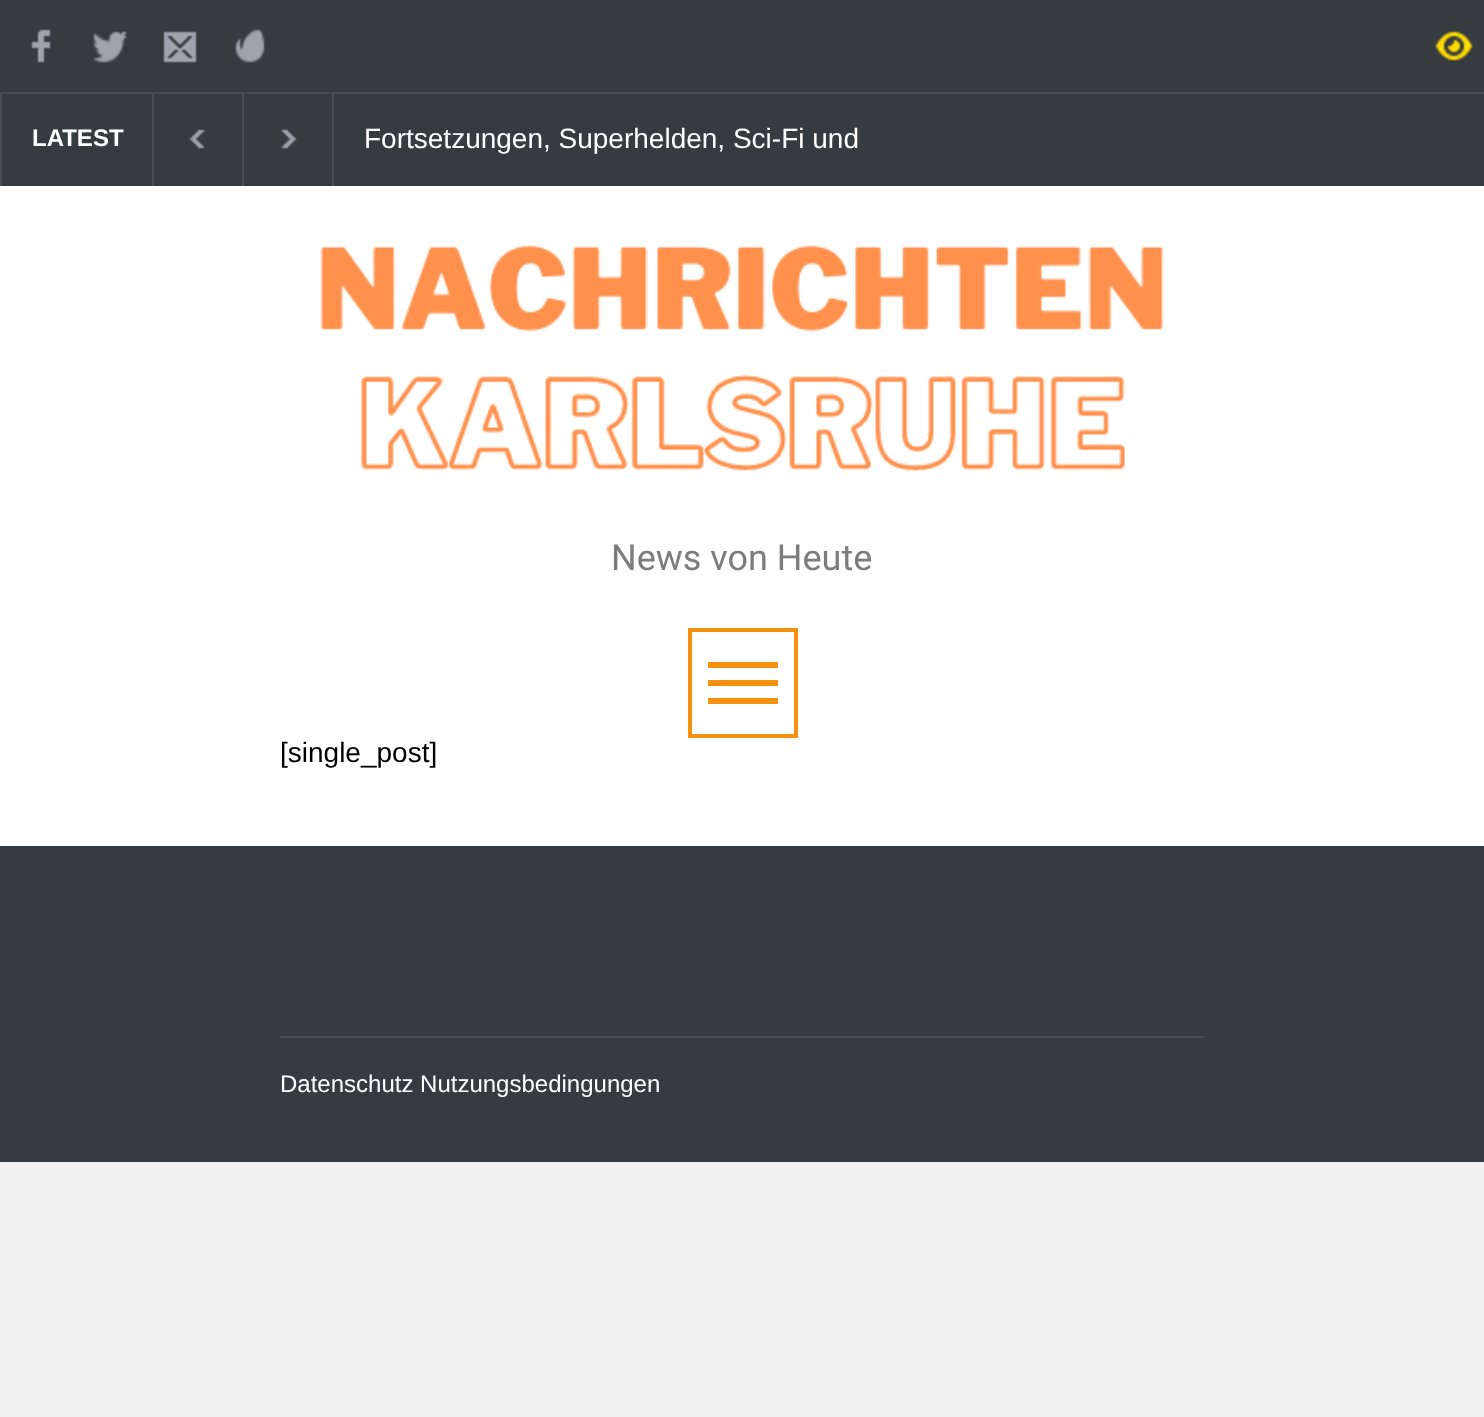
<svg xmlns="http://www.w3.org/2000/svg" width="1484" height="1417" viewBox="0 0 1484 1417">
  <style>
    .t1 { font: bold 24px Liberation Sans; fill: #fff; }
    .t2 { font: 28px Liberation Sans; fill: #fff; }
    .t3 { font: 36px Roboto; fill: #7c7c7c; }
    .t4 { font: 28px Liberation Sans; fill: #000; }
    .t5 { font: 24px Liberation Sans; fill: #fff; }
  </style>
  <rect width="100%" height="100%" fill="#f0f0f0"/>
  <rect x="0" y="186" width="1484" height="660" fill="#fff"/>
  <rect x="0" y="0" width="1484" height="186" fill="#363b40"/>
  <image x="31" y="29" width="20" height="34" href="images/1.png"/>
  <image x="93" y="31" width="34" height="32" href="images/2.png"/>
  <image x="163" y="31" width="34" height="32" href="images/3.png"/>
  <image x="235" y="29" width="30" height="34" href="images/4.png"/>
  <image x="1435" y="31" width="38" height="30" href="images/5.png"/>
  <rect x="0" y="92" width="1484" height="2" fill="#464d53"/>
  <rect x="152" y="94" width="2" height="92" fill="#464d53"/>
  <rect x="0" y="94" width="2" height="92" fill="#464d53"/>
  <text x="32" y="146" class="t1">LATEST</text>
  <rect x="242" y="94" width="2" height="92" fill="#464d53"/>
  <image x="189" y="129" width="16" height="20" href="images/6.png"/>
  <rect x="332" y="94" width="2" height="92" fill="#464d53"/>
  <image x="281" y="129" width="16" height="20" href="images/7.png"/>
  <text x="364" y="148" class="t2">Fortsetzungen, Superhelden, Sci-Fi und</text>
  <image x="320" y="245" width="844" height="226" href="images/8.png"/>
  <text x="611" y="570" class="t3">News von Heute</text>
  <rect x="690" y="630" width="106" height="106" fill="none" stroke="#f5910f" stroke-width="4"/>
  <rect x="708" y="662" width="70" height="6" fill="#f5910f"/>
  <rect x="708" y="680" width="70" height="6" fill="#f5910f"/>
  <rect x="708" y="698" width="70" height="6" fill="#f5910f"/>
  <text x="280" y="762" class="t4">[single_post]</text>
  <rect x="0" y="846" width="1484" height="316" fill="#363b40"/>
  <rect x="280" y="1036" width="924" height="2" fill="#464d53"/>
  <text x="280" y="1092" class="t5">Datenschutz Nutzungsbedingungen</text>
</svg>
